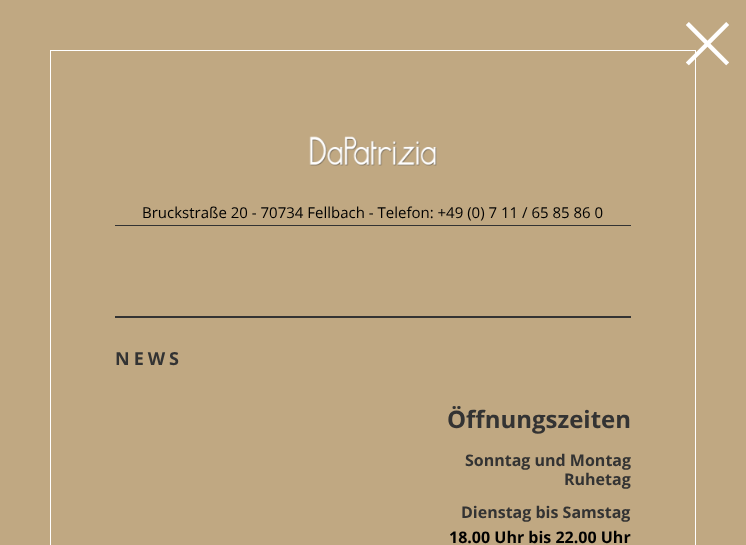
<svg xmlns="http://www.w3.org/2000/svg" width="746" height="545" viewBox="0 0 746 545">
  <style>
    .t1 { font: 300 100px Open Sans; fill: #fff; }
    .t2 { font: 15px Open Sans; fill: #000; }
    .t3 { font: bold 18px Open Sans; letter-spacing: 4px; fill: #333; }
    .t4 { font: bold 24px Open Sans; fill: #333; }
    .t5 { font: bold 16px Open Sans; fill: #333; }
    .t6 { font: bold 16px Open Sans; fill: #000; }
  </style>
  <rect width="100%" height="100%" fill="#c0a882"/>
  <rect x="50.5" y="50.5" width="645" height="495" fill="none" stroke="#fff"/>
  <text x="679" y="79" class="t1">×</text>
  <image x="309" y="136" width="128" height="30" href="images/1.png"/>
  <rect x="115" y="225" width="516" height="1" fill="#333"/>
  <text x="142" y="218" class="t2">Bruckstraße 20 - 70734 Fellbach - Telefon: +49 (0) 7 11 / 65 85 86 0</text>
  <rect x="115" y="316" width="516" height="2" fill="#333"/>
  <text x="115" y="365" class="t3">NEWS</text>
  <text x="447" y="428" class="t4">Öffnungszeiten</text>
  <text x="465" y="466" class="t5">Sonntag und Montag</text>
  <text x="564" y="485" class="t5">Ruhetag</text>
  <text x="461" y="518" class="t5">Dienstag bis Samstag</text>
  <text x="449" y="543" class="t6">18.00 Uhr bis 22.00 Uhr</text>
</svg>
